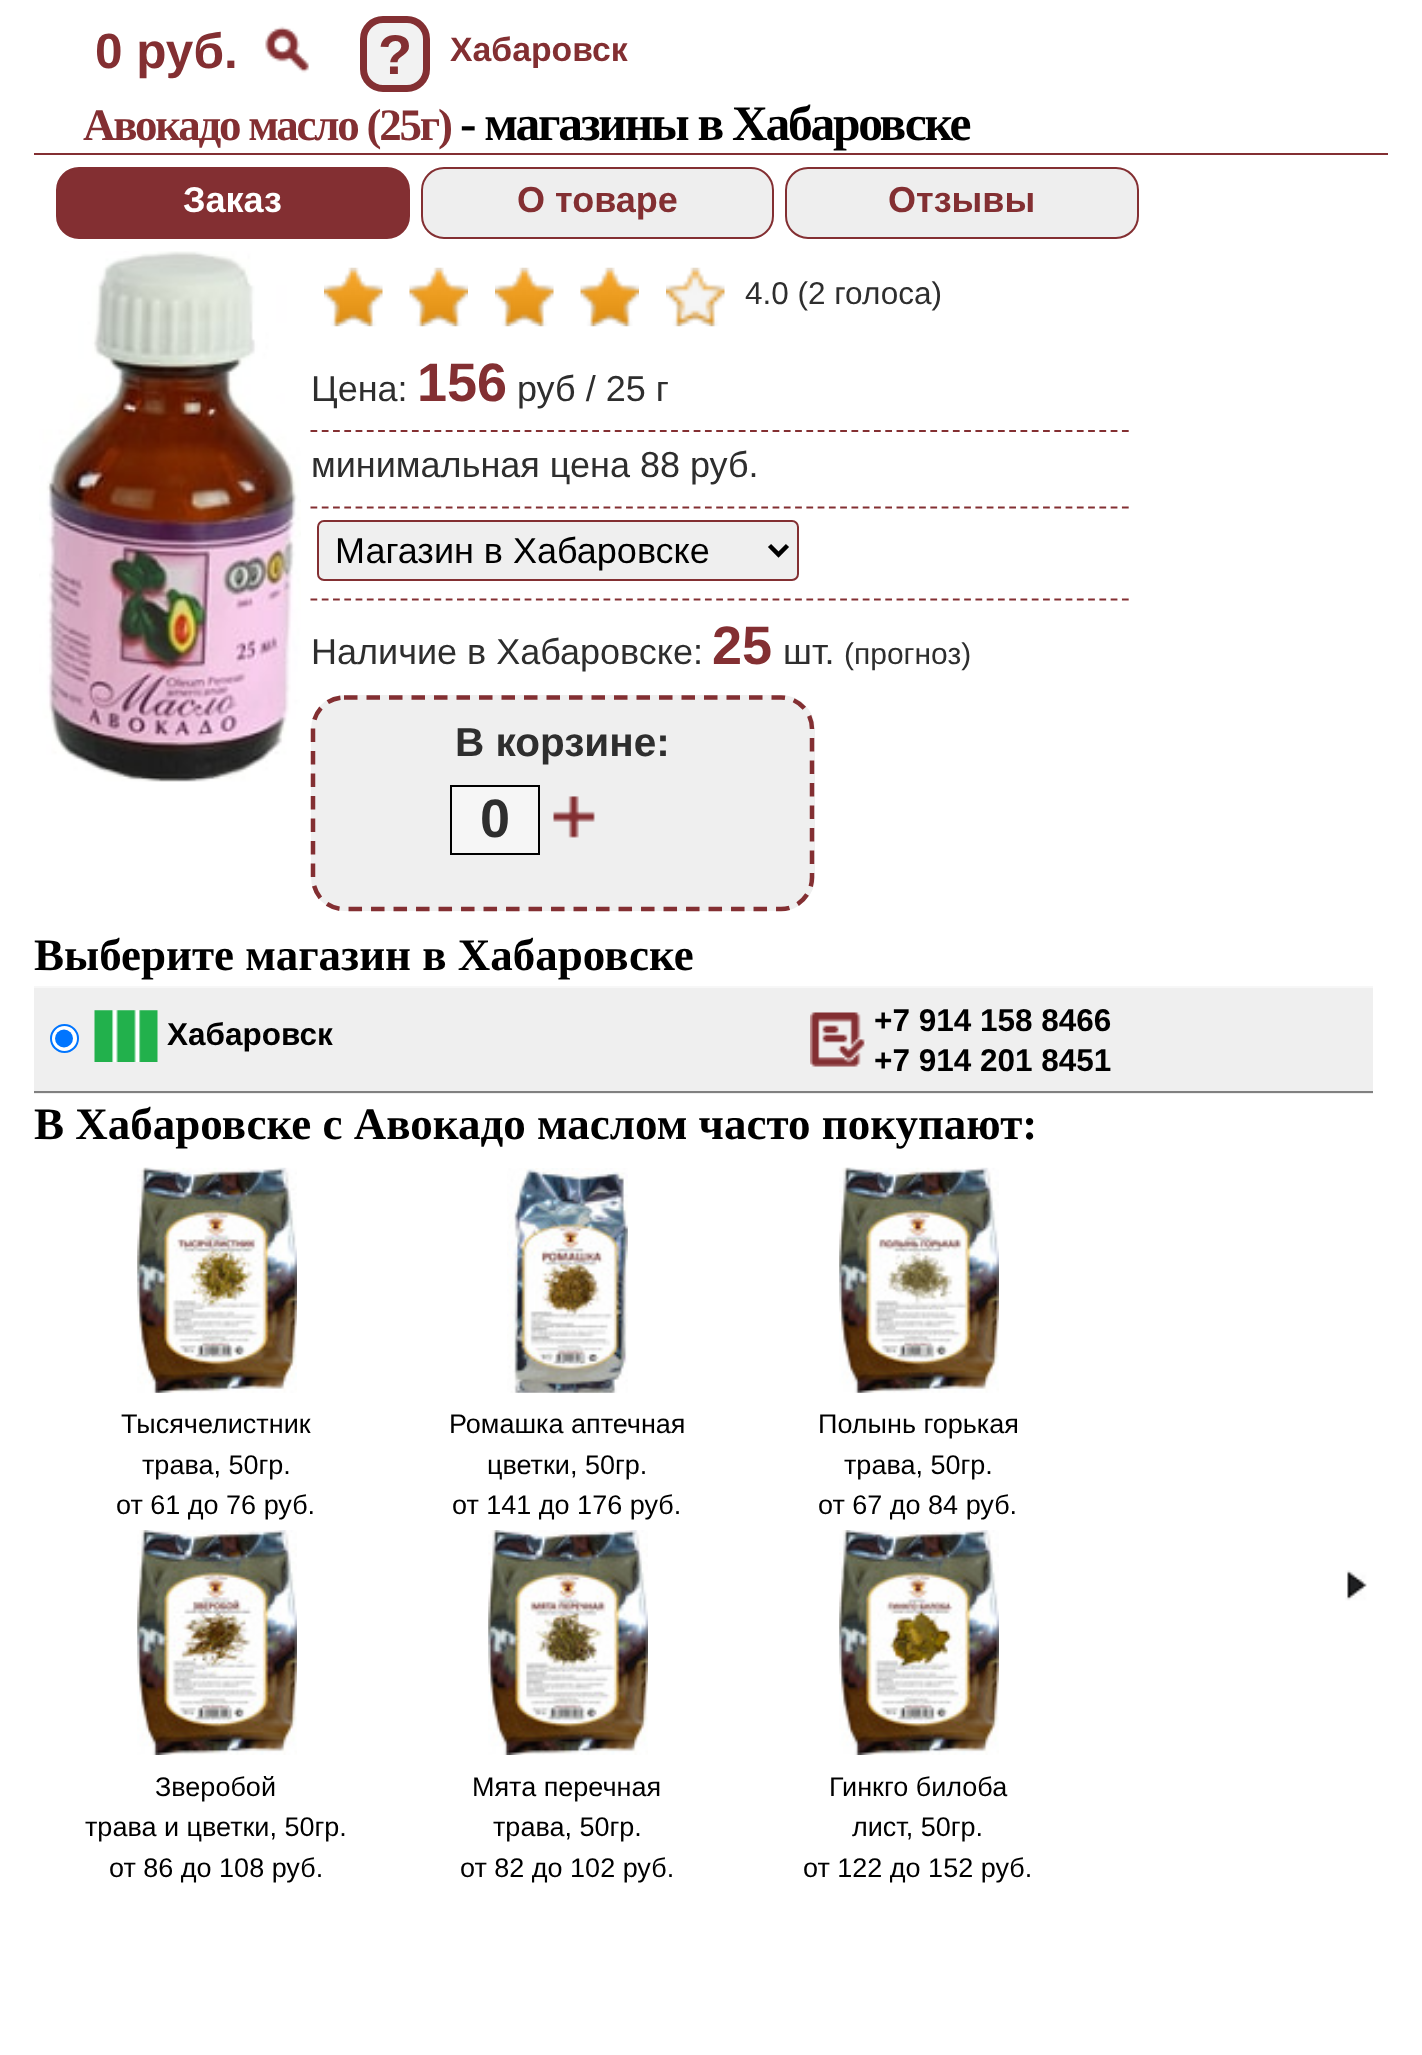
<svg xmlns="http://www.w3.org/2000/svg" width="1422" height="2055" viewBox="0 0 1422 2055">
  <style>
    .t1 { font: bold 49.5px Liberation Sans; fill: #832f32; }
    .t2 { font: bold 56px Liberation Sans; fill: #832f32; }
    .t3 { font: bold 33.75px Liberation Sans; fill: #832f32; }
    .t4 { font: bold 45px Liberation Serif; letter-spacing: -2.25px; fill: #832f32; }
    .t5 { font: bold 49.5px Liberation Serif; letter-spacing: -2.25px; fill: #000; }
    .t6 { font: bold 36px Liberation Sans; fill: #fff; }
    .t7 { font: bold 36px Liberation Sans; fill: #832f32; }
    .t8 { font: 31.5px Liberation Sans; fill: #2e2e2e; }
    .t9 { font: 36px Liberation Sans; fill: #2e2e2e; }
    .t10 { font: bold 54px Liberation Sans; fill: #832f32; }
    .t11 { font: 36px Liberation Sans; fill: #000; }
    .t12 { font: 30px Liberation Sans; fill: #2e2e2e; }
    .t13 { font: bold 40.5px Liberation Sans; fill: #2e2e2e; }
    .t14 { font: bold 54px Liberation Sans; fill: #2e2e2e; }
    .t15 { font: bold 45px Liberation Serif; fill: #000; }
    .t16 { font: bold 31.5px Liberation Sans; fill: #000; }
    .t17 { font: 27px Liberation Sans; fill: #000; }
  </style>
  <rect width="100%" height="100%" fill="#fff"/>
  <text x="95" y="68" class="t1">0 руб.</text>
  <image x="265" y="26" width="44" height="47" href="images/1.png"/>
  <rect x="363.5" y="19.5" width="63" height="69" rx="19.5" fill="#f2f2f2" stroke="#832f32" stroke-width="7"/>
  <text x="378" y="74" class="t2">?</text>
  <text x="450" y="61" class="t3">Хабаровск</text>
  <rect x="34" y="153" width="1354" height="2" fill="#832f32"/>
  <text x="83" y="140" class="t4">Авокадо масло (25г)</text>
  <text x="460" y="140" class="t5">- магазины в Хабаровске</text>
  <rect x="57" y="168" width="352" height="70" rx="22" fill="#832f32" stroke="#832f32" stroke-width="2"/>
  <text x="183" y="212" class="t6">Заказ</text>
  <rect x="422" y="168" width="351" height="70" rx="22" fill="#eee" stroke="#832f32" stroke-width="2"/>
  <text x="517" y="212" class="t7">О товаре</text>
  <rect x="786" y="168" width="352" height="70" rx="22" fill="#eee" stroke="#832f32" stroke-width="2"/>
  <text x="888" y="212" class="t7">Отзывы</text>
  <image x="39" y="251" width="262" height="531" href="images/2.png"/>
  <image x="324" y="267" width="59" height="60" href="images/3.png"/>
  <image x="409" y="267" width="59" height="60" href="images/4.png"/>
  <image x="495" y="267" width="59" height="60" href="images/3.png"/>
  <image x="580" y="267" width="59" height="60" href="images/4.png"/>
  <image x="666" y="267" width="59" height="60" href="images/5.png"/>
  <text x="745" y="304" class="t8">4.0 (2 голоса)</text>
  <path d="M310.5 431H1129.5" fill="none" stroke="#832f32" stroke-width="2.2" stroke-dasharray="6.75 4.52"/>
  <text x="311" y="401" class="t9">Цена:</text>
  <text x="417" y="401" class="t10">156</text>
  <text x="517" y="401" class="t9">руб / 25 г</text>
  <path d="M310.5 507.5H1129.5" fill="none" stroke="#832f32" stroke-width="2.2" stroke-dasharray="6.75 4.52"/>
  <text x="311" y="477" class="t9">минимальная цена 88 руб.</text>
  <path d="M310.5 599.5H1129.5" fill="none" stroke="#832f32" stroke-width="2.2" stroke-dasharray="6.75 4.52"/>
  <rect x="318" y="521" width="480" height="59" rx="6" fill="#efefef" stroke="#832f32" stroke-width="2"/>
  <path d="M769.5 545.5L778.5 554.5L787.5 545.5" fill="none" stroke="#000" stroke-width="4.5"/>
  <text x="335" y="563" class="t11">Магазин в Хабаровске</text>
  <text x="311" y="664" class="t9">Наличие в Хабаровске:</text>
  <text x="712" y="664" class="t10">25</text>
  <text x="783" y="664" class="t9">шт.</text>
  <text x="844" y="664" class="t12">(прогноз)</text>
  <rect x="311" y="695" width="504" height="216" rx="34" fill="#efefef"/>
  <path d="M344 697.5H781C798 697.5 812 711.5 812 729V877.5C812 895 798 909 781 909H344C327 909 313 895 313 877.5V729C313 711.5 327 697.5 344 697.5Z" fill="none" stroke="#832f32" stroke-width="4.5" stroke-dasharray="13.5 9"/>
  <text x="455" y="756" class="t13">В корзине:</text>
  <rect x="451" y="786" width="88" height="68" fill="#f6f6f6" stroke="#000" stroke-width="2"/>
  <text x="480" y="837" class="t14">0</text>
  <image x="553" y="796" width="42" height="42" href="images/6.png"/>
  <text x="34" y="970" class="t15">Выберите магазин в Хабаровске</text>
  <rect x="34" y="988" width="1339" height="106" fill="#efefef"/>
  <circle cx="64.5" cy="1038.5" r="13.5" fill="#fff" stroke="#0075ff" stroke-width="2"/>
  <circle cx="64" cy="1038.5" r="9" fill="#0075ff"/>
  <image x="94" y="1010" width="64" height="52" href="images/7.png"/>
  <text x="167" y="1045" class="t16">Хабаровск</text>
  <image x="810" y="1012" width="56" height="55" href="images/8.png"/>
  <rect x="34" y="986" width="1339" height="2" fill="#f7f7f7"/>
  <rect x="34" y="1091" width="1339" height="2" fill="#808080"/>
  <text x="874" y="1031" class="t16">+7 914 158 8466</text>
  <text x="874" y="1071" class="t16">+7 914 201 8451</text>
  <text x="34" y="1139" class="t15">В Хабаровске с Авокадо маслом часто покупают:</text>
  <image x="137" y="1167" width="160" height="226" href="images/9.png"/>
  <text x="121" y="1433" class="t17">Тысячелистник</text>
  <text x="142" y="1474" class="t17">трава, 50гр.</text>
  <text x="116" y="1514" class="t17">от 61 до 76 руб.</text>
  <image x="507" y="1168" width="121" height="225" href="images/10.png"/>
  <text x="449" y="1433" class="t17">Ромашка аптечная</text>
  <text x="487" y="1474" class="t17">цветки, 50гр.</text>
  <text x="452" y="1514" class="t17">от 141 до 176 руб.</text>
  <image x="839" y="1167" width="160" height="226" href="images/11.png"/>
  <text x="818" y="1433" class="t17">Полынь горькая</text>
  <text x="844" y="1474" class="t17">трава, 50гр.</text>
  <text x="818" y="1514" class="t17">от 67 до 84 руб.</text>
  <image x="1345" y="1570" width="22" height="31" href="images/12.png"/>
  <image x="137" y="1530" width="160" height="225" href="images/13.png"/>
  <text x="155" y="1796" class="t17">Зверобой</text>
  <text x="85" y="1836" class="t17">трава и цветки, 50гр.</text>
  <text x="109" y="1877" class="t17">от 86 до 108 руб.</text>
  <image x="488" y="1530" width="160" height="225" href="images/14.png"/>
  <text x="472" y="1796" class="t17">Мята перечная</text>
  <text x="493" y="1836" class="t17">трава, 50гр.</text>
  <text x="460" y="1877" class="t17">от 82 до 102 руб.</text>
  <image x="839" y="1530" width="160" height="225" href="images/15.png"/>
  <text x="829" y="1796" class="t17">Гинкго билоба</text>
  <text x="852" y="1836" class="t17">лист, 50гр.</text>
  <text x="803" y="1877" class="t17">от 122 до 152 руб.</text>
</svg>
